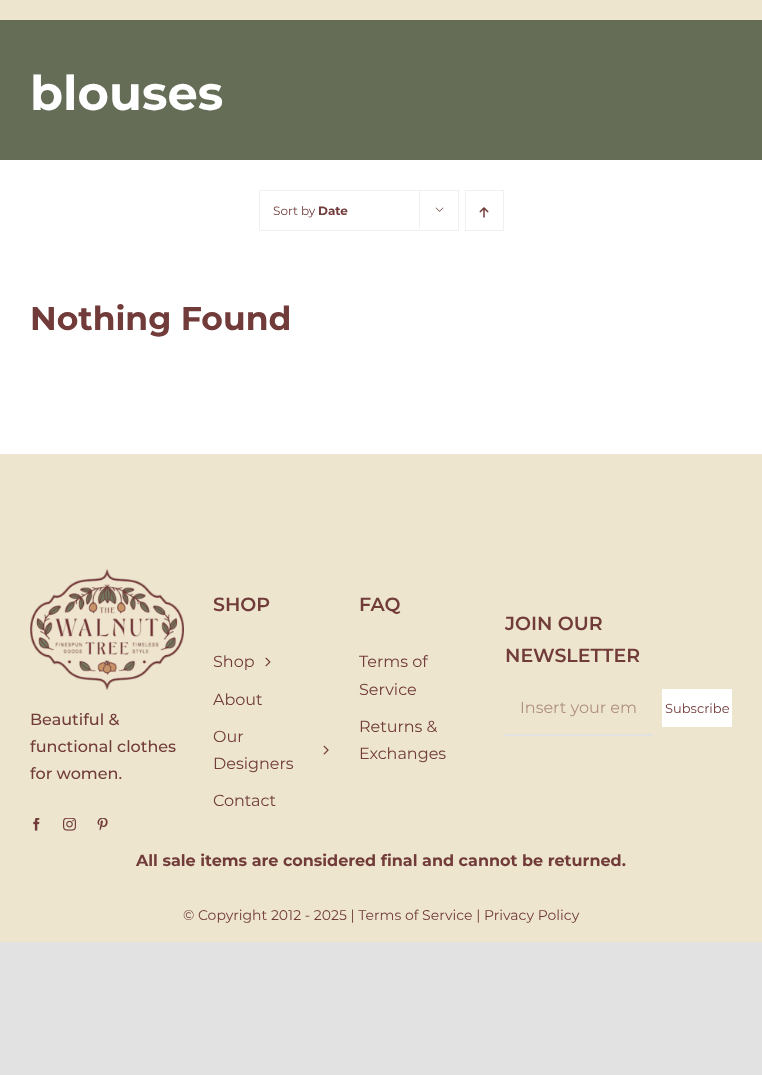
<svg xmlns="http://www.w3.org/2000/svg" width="762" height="1075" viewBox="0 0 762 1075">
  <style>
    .t1 { font: bold 48px Montserrat; fill: #fff; }
    .t2 { font: 12px Montserrat; fill: #713b3a; }
    .t3 { font: bold 12px Montserrat; fill: #713b3a; }
    .t4 { font: bold 33px Montserrat; fill: #713b3a; }
    .t5 { font: 600 19px Montserrat; fill: #713b3a; }
    .t6 { font: 16px Montserrat; fill: #713b3a; }
    .t7 { font: 16px Montserrat; fill: #b09184; }
    .t8 { font: 13px Montserrat; fill: #713b3a; }
    .t9 { font: 500 16px Montserrat; fill: #713b3a; }
    .t10 { font: bold 16px Montserrat; fill: #713b3a; }
    .t11 { font: 14px Montserrat; fill: #713b3a; }
  </style>
  <rect width="100%" height="100%" fill="#e2e2e2"/>
  <rect x="0" y="160" width="762" height="294" fill="#fff"/>
  <rect x="0" y="0" width="762" height="20" fill="#ede5cd"/>
  <rect x="0" y="20" width="762" height="140" fill="#666d57"/>
  <text x="30" y="110" class="t1">blouses</text>
  <rect x="259.5" y="190.5" width="199" height="40" fill="none" stroke="#f0f0f0"/>
  <text x="273" y="215" class="t2">Sort by</text>
  <text x="318" y="215" class="t3">Date</text>
  <rect x="419" y="190" width="1" height="39" fill="#f0f0f0"/>
  <image x="435" y="207" width="9" height="5" href="images/1.png"/>
  <rect x="465.5" y="190.5" width="38" height="40" fill="none" stroke="#f0f0f0"/>
  <image x="479" y="207" width="10" height="11" href="images/2.png"/>
  <text x="30" y="330" class="t4">Nothing Found</text>
  <rect x="0" y="454" width="762" height="488" fill="#ede5cd"/>
  <text x="213" y="611" class="t5">SHOP</text>
  <text x="213" y="667" class="t6">Shop</text>
  <image x="265" y="657" width="6" height="10" href="images/3.png"/>
  <text x="213" y="705" class="t6">About</text>
  <text x="213" y="742" class="t6">Our</text>
  <text x="213" y="769" class="t6">Designers</text>
  <image x="323" y="745" width="6" height="10" href="images/4.png"/>
  <text x="213" y="806" class="t6">Contact</text>
  <text x="359" y="611" class="t5">FAQ</text>
  <text x="359" y="667" class="t6">Terms of</text>
  <text x="359" y="695" class="t6">Service</text>
  <text x="359" y="732" class="t6">Returns &amp;</text>
  <text x="359" y="759" class="t6">Exchanges</text>
  <text x="505" y="630" class="t5">JOIN OUR</text>
  <text x="505" y="662" class="t5">NEWSLETTER</text>
  <rect x="504" y="734" width="149" height="2" fill="#e2e2e2"/>
  <text x="520" y="713" class="t7">Insert your em</text>
  <rect x="662" y="689" width="70" height="38" fill="#fff"/>
  <text x="665" y="713" class="t8">Subscribe</text>
  <image x="30" y="569" width="154" height="121" href="images/5.png"/>
  <text x="30" y="725" class="t9">Beautiful &amp;</text>
  <text x="30" y="752" class="t9">functional clothes</text>
  <text x="30" y="779" class="t9">for women.</text>
  <image x="33" y="818" width="7" height="13" href="images/6.png"/>
  <image x="63" y="818" width="13" height="13" href="images/7.png"/>
  <image x="97" y="818" width="11" height="13" href="images/8.png"/>
  <text x="136" y="866" class="t10">All sale items are considered final and cannot be returned.</text>
  <text x="183" y="920" class="t11">© Copyright 2012 - 2025 | Terms of Service | Privacy Policy</text>
</svg>
